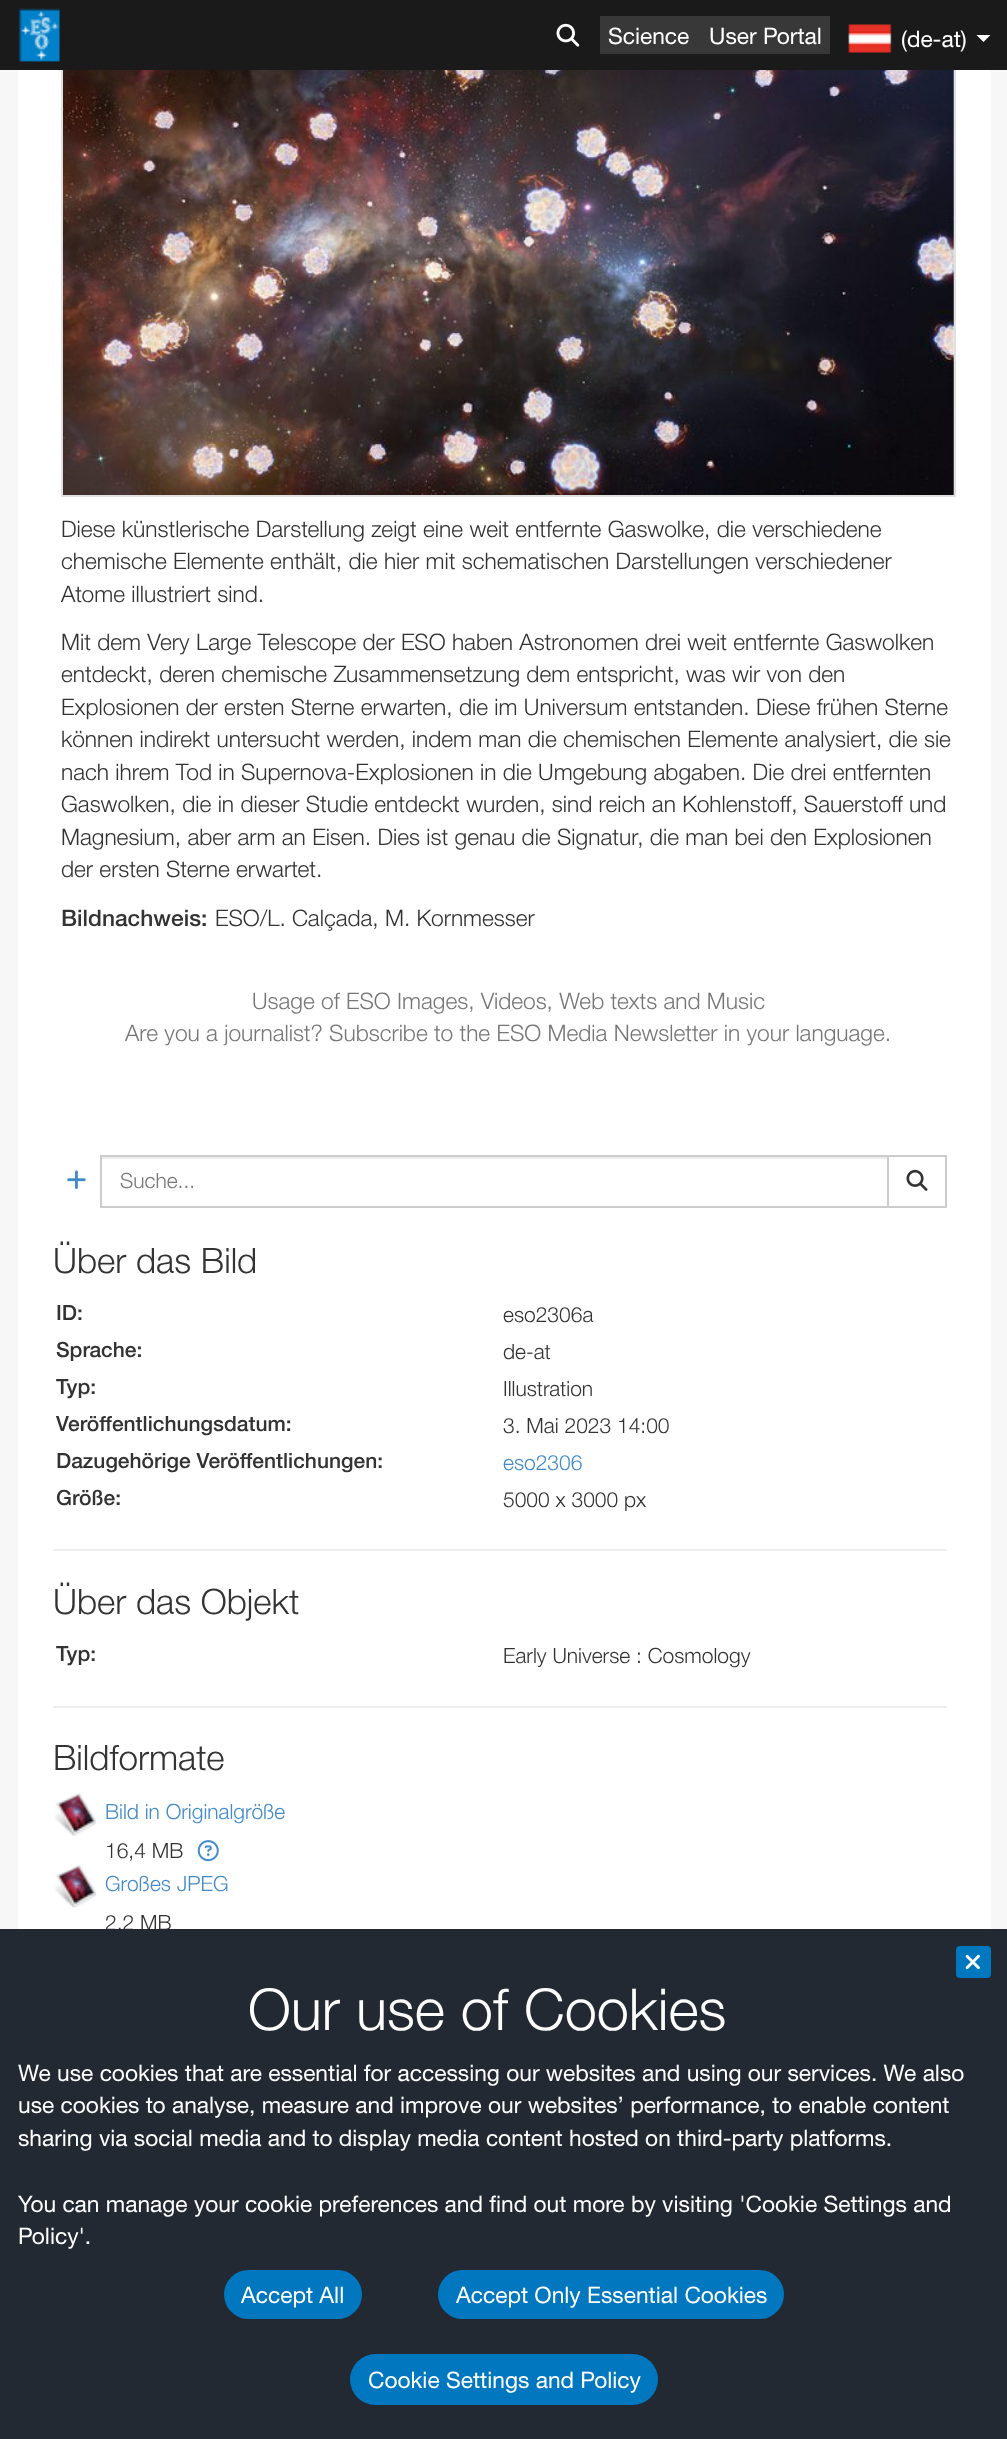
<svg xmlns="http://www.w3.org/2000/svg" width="1007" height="2439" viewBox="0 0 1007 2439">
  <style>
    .t1 { font: 22.75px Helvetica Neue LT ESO; fill: #fff; }
    .t2 { font: 300 22.75px Helvetica Neue LT ESO; fill: #333; }
    .t3 { font: 500 22.75px Helvetica Neue LT ESO; fill: #333; }
    .t4 { font: 300 22.75px Helvetica Neue LT ESO; fill: #777; }
    .t5 { font: 300 21px Helvetica Neue LT ESO; fill: #777; }
    .t6 { font: 300 35px Helvetica Neue LT ESO; fill: #333; }
    .t7 { font: 500 21px Helvetica Neue LT ESO; fill: #333; }
    .t8 { font: 300 21px Helvetica Neue LT ESO; fill: #333; }
    .t9 { font: 300 21px Helvetica Neue LT ESO; fill: #428bca; }
    .t10 { font: 300 57.75px Helvetica Neue LT ESO; fill: #fff; }
  </style>
  <rect width="100%" height="100%" fill="#f7f7f7"/>
  <rect x="18" y="70" width="973" height="1859" fill="#fff"/>
  <rect x="62" y="-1" width="893" height="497" fill="none" stroke="#e0e0e0" stroke-width="2"/>
  <rect x="0" y="0" width="1007" height="70" fill="#1a1a1a"/>
  <image x="18" y="8" width="42" height="54" href="images/1.png"/>
  <image x="556" y="23" width="24" height="24" href="images/2.png"/>
  <rect x="600" y="16" width="230" height="38" fill="#383838"/>
  <text x="608" y="44" class="t1">Science</text>
  <text x="709" y="44" class="t1">User Portal</text>
  <image x="848" y="24" width="44" height="29" href="images/3.png"/>
  <text x="901" y="47" class="t1">(de-at)</text>
  <path d="M976.5 35H990.5L983.5 42Z" fill="#fff"/>
  <image x="63" y="70" width="891" height="425" href="images/4.png"/>
  <text x="61" y="537" class="t2">Diese künstlerische Darstellung zeigt eine weit entfernte Gaswolke, die verschiedene</text>
  <text x="61" y="569" class="t2">chemische Elemente enthält, die hier mit schematischen Darstellungen verschiedener</text>
  <text x="61" y="602" class="t2">Atome illustriert sind.</text>
  <text x="61" y="650" class="t2">Mit dem Very Large Telescope der ESO haben Astronomen drei weit entfernte Gaswolken</text>
  <text x="61" y="682" class="t2">entdeckt, deren chemische Zusammensetzung dem entspricht, was wir von den</text>
  <text x="61" y="715" class="t2">Explosionen der ersten Sterne erwarten, die im Universum entstanden. Diese frühen Sterne</text>
  <text x="61" y="747" class="t2">können indirekt untersucht werden, indem man die chemischen Elemente analysiert, die sie</text>
  <text x="61" y="780" class="t2">nach ihrem Tod in Supernova-Explosionen in die Umgebung abgaben. Die drei entfernten</text>
  <text x="61" y="812" class="t2">Gaswolken, die in dieser Studie entdeckt wurden, sind reich an Kohlenstoff, Sauerstoff und</text>
  <text x="61" y="845" class="t2">Magnesium, aber arm an Eisen. Dies ist genau die Signatur, die man bei den Explosionen</text>
  <text x="61" y="877" class="t2">der ersten Sterne erwartet.</text>
  <text x="61" y="926" class="t3">Bildnachweis:</text>
  <text x="215" y="926" class="t2">ESO/L. Calçada, M. Kornmesser</text>
  <text x="252" y="1009" class="t4">Usage of ESO Images, Videos, Web texts and Music</text>
  <text x="125" y="1041" class="t4">Are you a journalist? Subscribe to the ESO Media Newsletter in your language.</text>
  <image x="67" y="1170" width="19" height="19" href="images/5.png"/>
  <rect x="102" y="1157" width="785" height="2" fill="#ececec"/>
  <rect x="888" y="1156" width="58" height="51" fill="none" stroke="#ccc" stroke-width="2"/>
  <rect x="101" y="1156" width="787" height="51" fill="none" stroke="#ccc" stroke-width="2"/>
  <text x="120" y="1188" class="t5">Suche...</text>
  <image x="906" y="1169" width="22" height="22" href="images/6.png"/>
  <text x="53" y="1273" class="t6">Über das Bild</text>
  <text x="56" y="1320" class="t7">ID:</text>
  <text x="503" y="1322" class="t8">eso2306a</text>
  <text x="56" y="1357" class="t7">Sprache:</text>
  <text x="503" y="1359" class="t8">de-at</text>
  <text x="56" y="1394" class="t7">Typ:</text>
  <text x="503" y="1396" class="t8">Illustration</text>
  <text x="56" y="1431" class="t7">Veröffentlichungsdatum:</text>
  <text x="503" y="1433" class="t8">3. Mai 2023 14:00</text>
  <text x="56" y="1468" class="t7">Dazugehörige Veröffentlichungen:</text>
  <text x="503" y="1470" class="t9">eso2306</text>
  <text x="56" y="1505" class="t7">Größe:</text>
  <text x="503" y="1507" class="t8">5000 x 3000 px</text>
  <rect x="53" y="1549" width="894" height="2" fill="#eee"/>
  <text x="53" y="1614" class="t6">Über das Objekt</text>
  <text x="56" y="1661" class="t7">Typ:</text>
  <text x="503" y="1663" class="t8">Early Universe : Cosmology</text>
  <rect x="53" y="1706" width="894" height="2" fill="#eee"/>
  <text x="53" y="1770" class="t6">Bildformate</text>
  <image x="54" y="1793" width="43" height="43" href="images/7.png"/>
  <text x="105" y="1819" class="t9">Bild in Originalgröße</text>
  <text x="105" y="1858" class="t8">16,4 MB</text>
  <image x="197" y="1840" width="22" height="22" href="images/8.png"/>
  <image x="54" y="1865" width="43" height="43" href="images/9.png"/>
  <text x="105" y="1891" class="t9">Großes JPEG</text>
  <text x="105" y="1930" class="t8">2,2 MB</text>
  <rect x="0" y="1929" width="1007" height="510" fill="#232932"/>
  <rect x="956" y="1946" width="35" height="32" rx="4" fill="#0077be"/>
  <image x="965" y="1954" width="15" height="16" href="images/10.png"/>
  <text x="248" y="2030" class="t10">Our use of Cookies</text>
  <text x="18" y="2081" class="t1">We use cookies that are essential for accessing our websites and using our services. We also</text>
  <text x="18" y="2113" class="t1">use cookies to analyse, measure and improve our websites’ performance, to enable content</text>
  <text x="18" y="2146" class="t1">sharing via social media and to display media content hosted on third-party platforms.</text>
  <text x="18" y="2212" class="t1">You can manage your cookie preferences and find out more by visiting 'Cookie Settings and</text>
  <text x="18" y="2244" class="t1">Policy'.</text>
  <rect x="224" y="2270" width="138" height="49" rx="24.5" fill="#0077be"/>
  <text x="241" y="2303" class="t1">Accept All</text>
  <rect x="438" y="2270" width="346" height="49" rx="24.5" fill="#0077be"/>
  <text x="456" y="2303" class="t1">Accept Only Essential Cookies</text>
  <rect x="350" y="2354" width="308" height="51" rx="25.5" fill="#0077be"/>
  <text x="368" y="2388" class="t1">Cookie Settings and Policy</text>
</svg>
